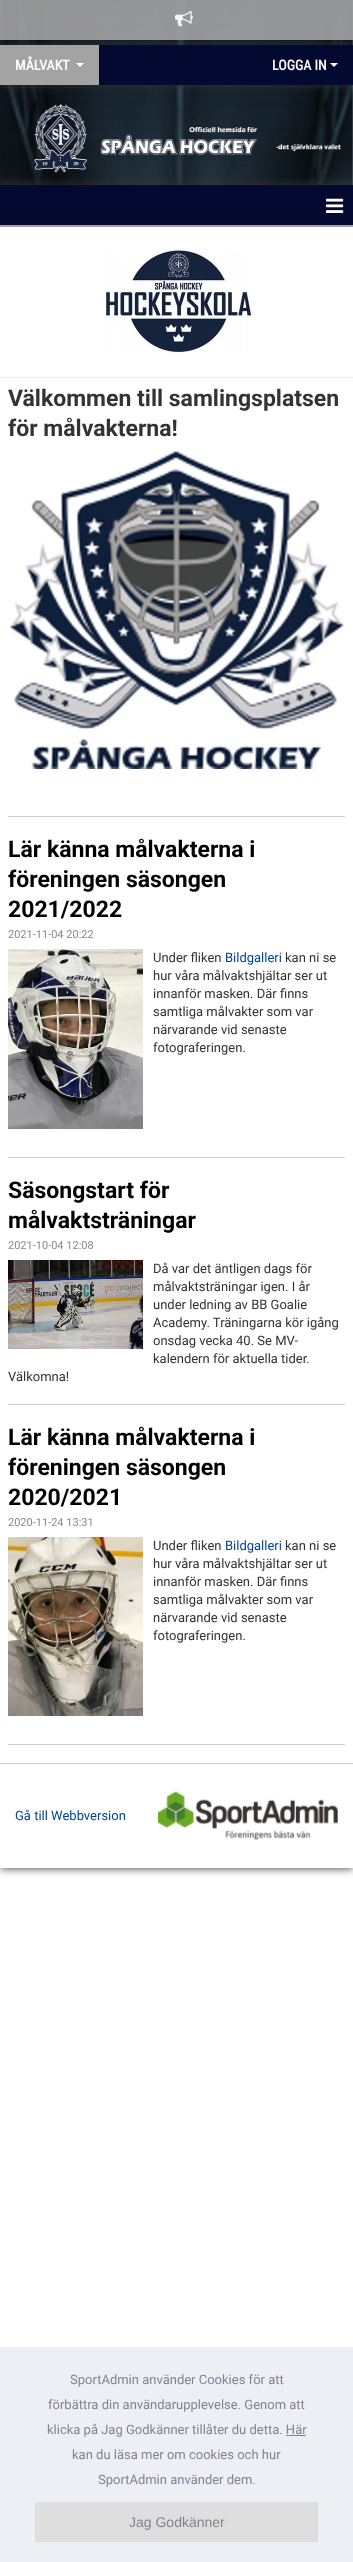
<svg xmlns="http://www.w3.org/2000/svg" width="353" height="2562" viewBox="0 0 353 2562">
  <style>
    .t1 { font: bold 14px Roboto Condensed; fill: #fff; }
    .t2 { font: bold 23px Roboto; fill: #333; }
    .t3 { font: bold 23px Roboto; fill: #000; }
    .t4 { font: 11px Roboto; fill: #888; }
    .t5 { font: 13px Roboto; fill: #333; }
    .t6 { font: 13px Roboto; fill: #049; }
    .t7 { font: 13px Roboto; fill: #828390; }
    .t8 { font: 14px Liberation Sans; fill: #828390; }
  </style>
  <defs>
    <clipPath id="clip1"><path d="M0 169H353V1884H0ZM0 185H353V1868H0Z" clip-rule="evenodd"/></clipPath>
  </defs>
  <rect width="100%" height="100%" fill="#fff"/>
  <image x="0" y="0" width="353" height="185" href="images/1.png"/>
  <rect x="0" y="45" width="353" height="40" fill="#333" filter="blur(5px)"/>
  <rect x="0" y="0" width="353" height="40" fill="#a3a3a3e6"/>
  <image x="175" y="10" width="18" height="17" href="images/2.png"/>
  <rect x="99" y="45" width="254" height="40" fill="#040931"/>
  <rect x="0" y="45" width="99" height="40" fill="#a3a3a3"/>
  <text x="15" y="70" class="t1">MÅLVAKT</text>
  <path d="M76 63H84L80 67Z" fill="#fff"/>
  <text x="272" y="70" class="t1">LOGGA IN</text>
  <path d="M330 63H338L334 67Z" fill="#fff"/>
  <g clip-path="url(#clip1)">
    <rect x="0" y="185" width="353" height="1683" fill="#333" filter="blur(5px)"/>
  </g>
  <image x="34" y="104" width="307" height="69" href="images/3.png"/>
  <rect x="0" y="185" width="353" height="40" fill="#040931"/>
  <rect x="0" y="225" width="353" height="2" fill="#a3a3a3"/>
  <image x="326" y="198" width="18" height="15" href="images/4.png"/>
  <image x="103" y="250" width="149" height="104" href="images/5.png"/>
  <rect x="0" y="377" width="353" height="1" fill="#eee"/>
  <text x="8" y="406" class="t2">Välkommen till samlingsplatsen</text>
  <text x="8" y="436" class="t2">för målvakterna!</text>
  <image x="9" y="450" width="335" height="319" href="images/6.png"/>
  <rect x="8" y="816" width="337" height="1" fill="#ccc"/>
  <text x="8" y="857" class="t3">Lär känna målvakterna i</text>
  <text x="8" y="887" class="t3">föreningen säsongen</text>
  <text x="8" y="917" class="t3">2021/2022</text>
  <text x="8" y="938" class="t4">2021-11-04 20:22</text>
  <image x="8" y="949" width="135" height="180" href="images/7.png"/>
  <text x="153" y="962" class="t5">Under fliken</text>
  <text x="225" y="962" class="t6">Bildgalleri</text>
  <text x="285" y="962" class="t5">kan ni se</text>
  <text x="153" y="980" class="t5">hur våra målvaktshjältar ser ut</text>
  <text x="153" y="998" class="t5">innanför masken. Där finns</text>
  <text x="153" y="1016" class="t5">samtliga målvakter som var</text>
  <text x="153" y="1034" class="t5">närvarande vid senaste</text>
  <text x="153" y="1052" class="t5">fotograferingen.</text>
  <rect x="8" y="1157" width="337" height="1" fill="#ccc"/>
  <text x="8" y="1198" class="t3">Säsongstart för</text>
  <text x="8" y="1228" class="t3">målvaktsträningar</text>
  <text x="8" y="1249" class="t4">2021-10-04 12:08</text>
  <image x="8" y="1260" width="135" height="89" href="images/8.png"/>
  <text x="153" y="1273" class="t5">Då var det äntligen dags för</text>
  <text x="153" y="1291" class="t5">målvaktsträningar igen. I år</text>
  <text x="153" y="1309" class="t5">under ledning av BB Goalie</text>
  <text x="153" y="1327" class="t5">Academy. Träningarna kör igång</text>
  <text x="153" y="1345" class="t5">onsdag vecka 40. Se MV-</text>
  <text x="153" y="1363" class="t5">kalendern för aktuella tider.</text>
  <text x="8" y="1381" class="t5">Välkomna!</text>
  <rect x="8" y="1404" width="337" height="1" fill="#ccc"/>
  <text x="8" y="1445" class="t3">Lär känna målvakterna i</text>
  <text x="8" y="1475" class="t3">föreningen säsongen</text>
  <text x="8" y="1505" class="t3">2020/2021</text>
  <text x="8" y="1526" class="t4">2020-11-24 13:31</text>
  <image x="8" y="1537" width="135" height="179" href="images/9.png"/>
  <text x="153" y="1550" class="t5">Under fliken</text>
  <text x="225" y="1550" class="t6">Bildgalleri</text>
  <text x="285" y="1550" class="t5">kan ni se</text>
  <text x="153" y="1568" class="t5">hur våra målvaktshjältar ser ut</text>
  <text x="153" y="1586" class="t5">innanför masken. Där finns</text>
  <text x="153" y="1604" class="t5">samtliga målvakter som var</text>
  <text x="153" y="1622" class="t5">närvarande vid senaste</text>
  <text x="153" y="1640" class="t5">fotograferingen.</text>
  <rect x="8" y="1744" width="337" height="1" fill="#ccc"/>
  <rect x="0" y="1763" width="353" height="1" fill="#ccc"/>
  <text x="15" y="1820" class="t6">Gå till Webbversion</text>
  <image x="158" y="1791" width="180" height="50" href="images/10.png"/>
  <rect x="0" y="2347" width="353" height="215" fill="#edeff5"/>
  <text x="70" y="2384" class="t7">SportAdmin använder Cookies för att</text>
  <text x="48" y="2409" class="t7">förbättra din användarupplevelse. Genom att</text>
  <text x="47" y="2434" class="t7">klicka på Jag Godkänner tillåter du detta. Här</text>
  <rect x="286" y="2435" width="20" height="1" fill="#828390"/>
  <text x="72" y="2459" class="t7">kan du läsa mer om cookies och hur</text>
  <text x="98" y="2484" class="t7">SportAdmin använder dem.</text>
  <rect x="35" y="2502" width="283" height="40" fill="#dedede"/>
  <text x="129" y="2527" class="t8">Jag Godkänner</text>
</svg>
